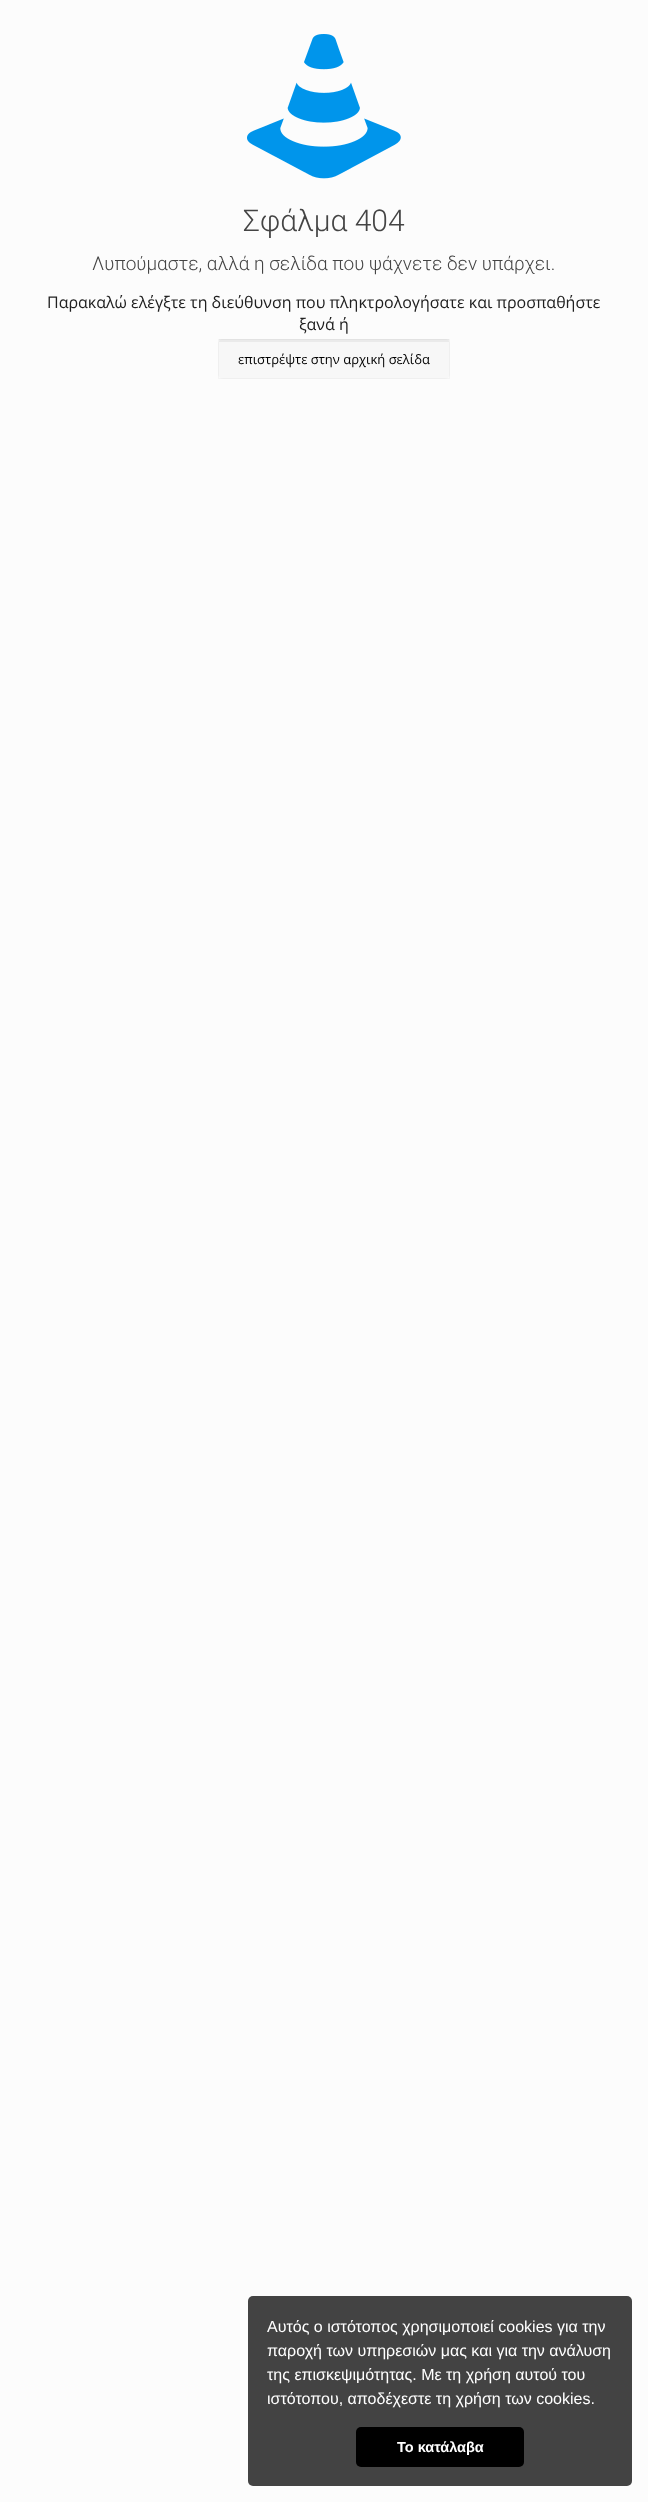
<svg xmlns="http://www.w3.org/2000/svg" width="648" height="2502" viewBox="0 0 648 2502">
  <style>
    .t1 { font: 300 30px Roboto; fill: #444; }
    .t2 { font: 300 19px Roboto; fill: #444; }
    .t3 { font: 16px Open Sans; fill: #202020; }
    .t4 { font: 13px Open Sans; fill: #000; }
    .t5 { font: 16px Liberation Sans; fill: #fff; }
    .t6 { font: bold 14.5px Liberation Sans; fill: #fff; }
  </style>
  <rect width="100%" height="100%" fill="#fcfcfc"/>
  <image x="247" y="34" width="154" height="145" href="images/1.png"/>
  <text x="243" y="231" class="t1">Σφάλμα 404</text>
  <text x="92" y="270" class="t2">Λυπούμαστε, αλλά η σελίδα που ψάχνετε δεν υπάρχει.</text>
  <text x="47" y="308" class="t3">Παρακαλώ ελέγξτε τη διεύθυνση που πληκτρολογήσατε και προσπαθήστε</text>
  <text x="299" y="330" class="t3">ξανά ή</text>
  <rect x="218" y="339" width="232" height="40" rx="5" fill="#f7f7f7"/>
  <rect x="219" y="339" width="230" height="3" fill="#0000000d"/>
  <rect x="218.5" y="339.5" width="231" height="39" fill="none" stroke="#00000008"/>
  <text x="238" y="364" class="t4">επιστρέψτε στην αρχική σελίδα</text>
  <rect x="248" y="2296" width="384" height="190" rx="5" fill="#434343"/>
  <text x="267" y="2332" class="t5">Αυτός ο ιστότοπος χρησιμοποιεί cookies για την</text>
  <text x="267" y="2356" class="t5">παροχή των υπηρεσιών μας και για την ανάλυση</text>
  <text x="267" y="2380" class="t5">της επισκεψιμότητας. Με τη χρήση αυτού του</text>
  <text x="267" y="2404" class="t5">ιστότοπου, αποδέχεστε τη χρήση των cookies.</text>
  <rect x="356" y="2427" width="168" height="40" rx="5" fill="#000"/>
  <text x="397" y="2452" class="t6">Το κατάλαβα</text>
</svg>
